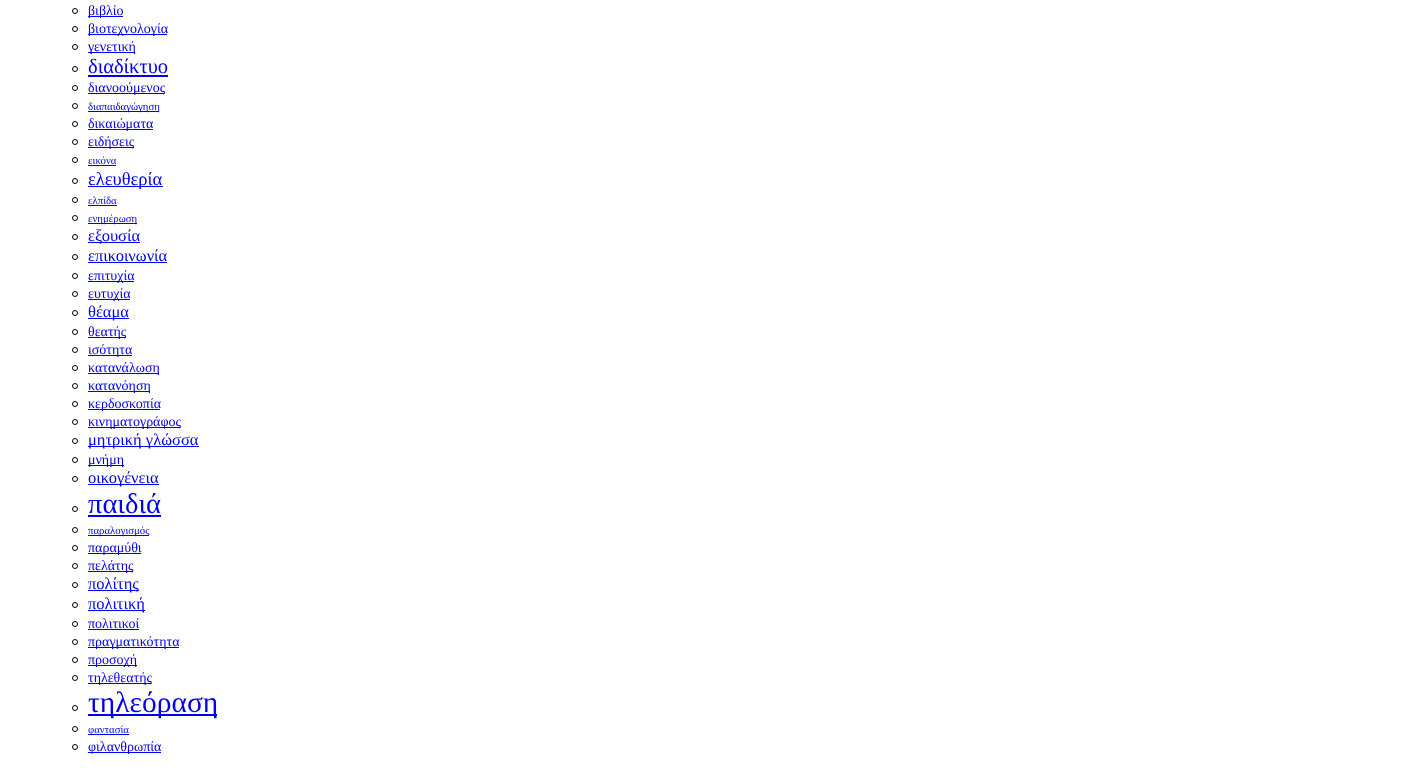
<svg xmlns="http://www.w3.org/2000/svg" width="1402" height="768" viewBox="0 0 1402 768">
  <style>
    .t1 { font: 14px Liberation Serif; fill: #00e; }
    .t2 { font: 20.5px Liberation Serif; fill: #00e; }
    .t3 { font: 10.75px Liberation Serif; fill: #00e; }
    .t4 { font: 18.5px Liberation Serif; fill: #00e; }
    .t5 { font: 16.5px Liberation Serif; fill: #00e; }
    .t6 { font: 28.5px Liberation Serif; fill: #00e; }
    .t7 { font: 29.5px Liberation Serif; fill: #00e; }
  </style>
  <rect width="100%" height="100%" fill="#fff"/>
  <circle cx="75" cy="11" r="2.5" fill="none" stroke="#000"/>
  <rect x="88" y="16" width="35" height="1" fill="#00e"/>
  <text x="88" y="15" class="t1">βιβλίο</text>
  <circle cx="75" cy="29" r="2.5" fill="none" stroke="#000"/>
  <rect x="88" y="34" width="79" height="1" fill="#00e"/>
  <text x="88" y="33" class="t1">βιοτεχνολογία</text>
  <circle cx="75" cy="47" r="2.5" fill="none" stroke="#000"/>
  <rect x="88" y="52" width="47" height="1" fill="#00e"/>
  <text x="88" y="51" class="t1">γενετική</text>
  <circle cx="75" cy="69" r="2.5" fill="none" stroke="#000"/>
  <text x="88" y="73" class="t2">διαδίκτυο</text>
  <rect x="88" y="75" width="80" height="2" fill="#00e"/>
  <circle cx="75" cy="88" r="2.5" fill="none" stroke="#000"/>
  <rect x="88" y="93" width="76" height="1" fill="#00e"/>
  <text x="88" y="92" class="t1">διανοούμενος</text>
  <circle cx="75" cy="106" r="2.5" fill="none" stroke="#000"/>
  <rect x="88" y="111" width="71" height="1" fill="#00e"/>
  <text x="88" y="110" class="t3">διαπαιδαγώγηση</text>
  <circle cx="75" cy="124" r="2.5" fill="none" stroke="#000"/>
  <rect x="88" y="129" width="65" height="1" fill="#00e"/>
  <text x="88" y="128" class="t1">δικαιώματα</text>
  <circle cx="75" cy="142" r="2.5" fill="none" stroke="#000"/>
  <rect x="88" y="147" width="46" height="1" fill="#00e"/>
  <text x="88" y="146" class="t1">ειδήσεις</text>
  <circle cx="75" cy="160" r="2.5" fill="none" stroke="#000"/>
  <text x="88" y="164" class="t3">εικόνα</text>
  <rect x="88" y="165" width="28" height="1" fill="#00e"/>
  <circle cx="75" cy="181" r="2.5" fill="none" stroke="#000"/>
  <rect x="88" y="186" width="75" height="1" fill="#00e"/>
  <text x="88" y="185" class="t4">ελευθερία</text>
  <circle cx="75" cy="200" r="2.5" fill="none" stroke="#000"/>
  <text x="88" y="204" class="t3">ελπίδα</text>
  <rect x="88" y="205" width="29" height="1" fill="#00e"/>
  <circle cx="75" cy="218" r="2.5" fill="none" stroke="#000"/>
  <rect x="88" y="223" width="49" height="1" fill="#00e"/>
  <text x="88" y="222" class="t3">ενημέρωση</text>
  <circle cx="75" cy="237" r="2.5" fill="none" stroke="#000"/>
  <rect x="88" y="242" width="52" height="1" fill="#00e"/>
  <text x="88" y="241" class="t5">εξουσία</text>
  <circle cx="75" cy="257" r="2.5" fill="none" stroke="#000"/>
  <text x="88" y="261" class="t5">επικοινωνία</text>
  <rect x="88" y="262" width="79" height="1" fill="#00e"/>
  <circle cx="75" cy="276" r="2.5" fill="none" stroke="#000"/>
  <rect x="88" y="281" width="46" height="1" fill="#00e"/>
  <text x="88" y="280" class="t1">επιτυχία</text>
  <circle cx="75" cy="294" r="2.5" fill="none" stroke="#000"/>
  <rect x="88" y="299" width="42" height="1" fill="#00e"/>
  <text x="88" y="298" class="t1">ευτυχία</text>
  <circle cx="75" cy="313" r="2.5" fill="none" stroke="#000"/>
  <rect x="88" y="318" width="41" height="1" fill="#00e"/>
  <text x="88" y="317" class="t5">θέαμα</text>
  <circle cx="75" cy="332" r="2.5" fill="none" stroke="#000"/>
  <rect x="88" y="337" width="38" height="1" fill="#00e"/>
  <text x="88" y="336" class="t1">θεατής</text>
  <circle cx="75" cy="350" r="2.5" fill="none" stroke="#000"/>
  <rect x="88" y="355" width="44" height="1" fill="#00e"/>
  <text x="88" y="354" class="t1">ισότητα</text>
  <circle cx="75" cy="368" r="2.5" fill="none" stroke="#000"/>
  <rect x="88" y="373" width="71" height="1" fill="#00e"/>
  <text x="88" y="372" class="t1">κατανάλωση</text>
  <circle cx="75" cy="386" r="2.5" fill="none" stroke="#000"/>
  <rect x="88" y="391" width="62" height="1" fill="#00e"/>
  <text x="88" y="390" class="t1">κατανόηση</text>
  <circle cx="75" cy="404" r="2.5" fill="none" stroke="#000"/>
  <rect x="88" y="409" width="72" height="1" fill="#00e"/>
  <text x="88" y="408" class="t1">κερδοσκοπία</text>
  <circle cx="75" cy="422" r="2.5" fill="none" stroke="#000"/>
  <rect x="88" y="427" width="92" height="1" fill="#00e"/>
  <text x="88" y="426" class="t1">κινηματογράφος</text>
  <circle cx="75" cy="441" r="2.5" fill="none" stroke="#000"/>
  <rect x="88" y="446" width="111" height="1" fill="#00e"/>
  <text x="88" y="445" class="t5">μητρική γλώσσα</text>
  <circle cx="75" cy="460" r="2.5" fill="none" stroke="#000"/>
  <rect x="88" y="465" width="36" height="1" fill="#00e"/>
  <text x="88" y="464" class="t1">μνήμη</text>
  <circle cx="75" cy="479" r="2.5" fill="none" stroke="#000"/>
  <rect x="88" y="484" width="71" height="1" fill="#00e"/>
  <text x="88" y="483" class="t5">οικογένεια</text>
  <circle cx="75" cy="509" r="2.5" fill="none" stroke="#000"/>
  <text x="88" y="513" class="t6">παιδιά</text>
  <rect x="88" y="515" width="73" height="2" fill="#00e"/>
  <circle cx="75" cy="530" r="2.5" fill="none" stroke="#000"/>
  <rect x="88" y="535" width="61" height="1" fill="#00e"/>
  <text x="88" y="534" class="t3">παραλογισμός</text>
  <circle cx="75" cy="548" r="2.5" fill="none" stroke="#000"/>
  <rect x="88" y="553" width="53" height="1" fill="#00e"/>
  <text x="88" y="552" class="t1">παραμύθι</text>
  <circle cx="75" cy="566" r="2.5" fill="none" stroke="#000"/>
  <rect x="88" y="571" width="45" height="1" fill="#00e"/>
  <text x="88" y="570" class="t1">πελάτης</text>
  <circle cx="75" cy="585" r="2.5" fill="none" stroke="#000"/>
  <rect x="88" y="590" width="51" height="1" fill="#00e"/>
  <text x="88" y="589" class="t5">πολίτης</text>
  <circle cx="75" cy="605" r="2.5" fill="none" stroke="#000"/>
  <rect x="88" y="610" width="57" height="1" fill="#00e"/>
  <text x="88" y="609" class="t5">πολιτική</text>
  <circle cx="75" cy="624" r="2.5" fill="none" stroke="#000"/>
  <text x="88" y="628" class="t1">πολιτικοί</text>
  <rect x="88" y="629" width="51" height="1" fill="#00e"/>
  <circle cx="75" cy="642" r="2.5" fill="none" stroke="#000"/>
  <rect x="88" y="647" width="91" height="1" fill="#00e"/>
  <text x="88" y="646" class="t1">πραγματικότητα</text>
  <circle cx="75" cy="660" r="2.5" fill="none" stroke="#000"/>
  <rect x="88" y="665" width="49" height="1" fill="#00e"/>
  <text x="88" y="664" class="t1">προσοχή</text>
  <circle cx="75" cy="678" r="2.5" fill="none" stroke="#000"/>
  <rect x="88" y="683" width="63" height="1" fill="#00e"/>
  <text x="88" y="682" class="t1">τηλεθεατής</text>
  <circle cx="75" cy="708" r="2.5" fill="none" stroke="#000"/>
  <rect x="88" y="714" width="129" height="2" fill="#00e"/>
  <text x="88" y="712" class="t7">τηλεόραση</text>
  <circle cx="75" cy="729" r="2.5" fill="none" stroke="#000"/>
  <rect x="88" y="734" width="41" height="1" fill="#00e"/>
  <text x="88" y="733" class="t3">φαντασία</text>
  <circle cx="75" cy="747" r="2.5" fill="none" stroke="#000"/>
  <rect x="88" y="752" width="73" height="1" fill="#00e"/>
  <text x="88" y="751" class="t1">φιλανθρωπία</text>
</svg>
